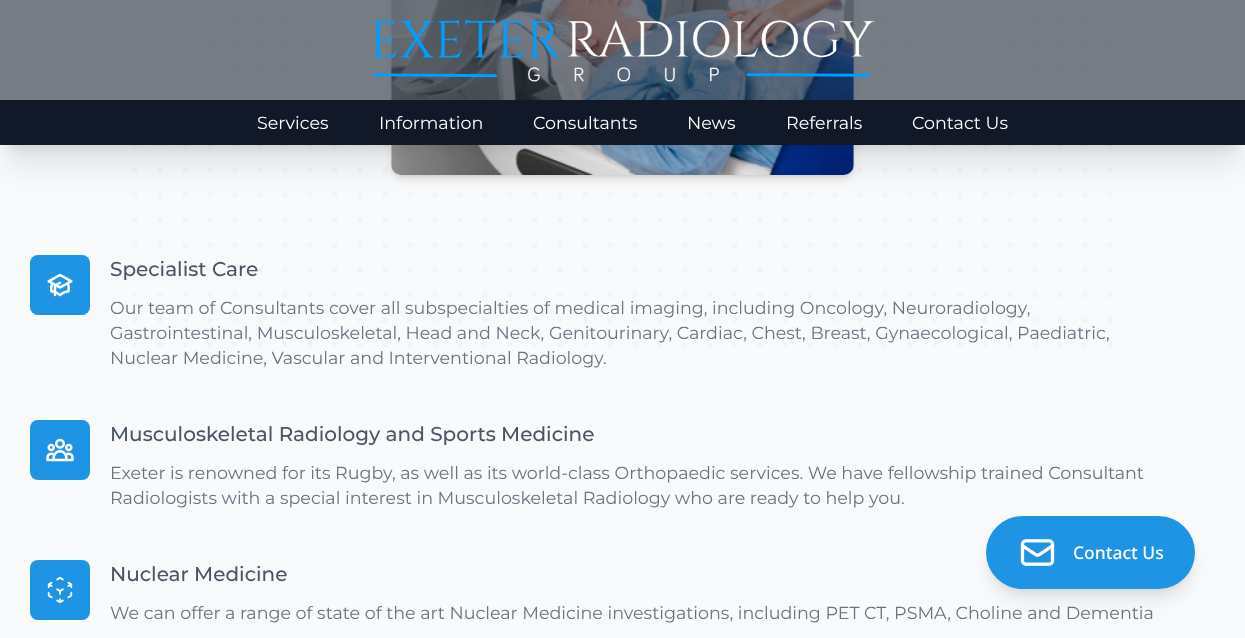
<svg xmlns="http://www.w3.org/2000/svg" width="1245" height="638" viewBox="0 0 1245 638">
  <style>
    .t1 { font: 17.5px Montserrat; fill: #fff; }
    .t2 { font: 500 20px Montserrat; fill: #4b5563; }
    .t3 { font: 17.5px Montserrat; fill: #6b7280; }
    .t4 { font: 500 17.5px Noto Sans; fill: #fff; }
  </style>
  <rect width="100%" height="100%" fill="#f9fafb"/>
  <image x="133" y="18" width="979" height="329" href="images/3.png"/>
  <rect x="394" y="-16" width="457" height="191" rx="8" fill="#0000001a" filter="blur(2.5px)"/>
  <rect x="393" y="-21" width="460" height="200" rx="9" fill="#0000001a" filter="blur(4px)"/>
  <image x="391" y="0" width="463" height="175" href="images/2.png"/>
  <rect x="0" y="0" width="1245" height="100" fill="#1f293799"/>
  <image x="372" y="20" width="503" height="62" href="images/1.png"/>
  <rect x="8" y="118" width="1230" height="30" fill="#0000001a" filter="blur(6px)"/>
  <rect x="6" y="131" width="1233" height="33" fill="#0000001a" filter="blur(15.5px)"/>
  <rect x="0" y="100" width="1245" height="45" fill="#111827"/>
  <text x="257" y="129" class="t1">Services</text>
  <text x="379" y="129" class="t1">Information</text>
  <text x="533" y="129" class="t1">Consultants</text>
  <text x="687" y="129" class="t1">News</text>
  <text x="786" y="129" class="t1">Referrals</text>
  <text x="912" y="129" class="t1">Contact Us</text>
  <rect x="30" y="255" width="60" height="60" rx="8" fill="#1f93e4"/>
  <image x="47" y="273" width="26" height="24" href="images/4.png"/>
  <text x="110" y="276" class="t2">Specialist Care</text>
  <text x="110" y="314" class="t3">Our team of Consultants cover all subspecialties of medical imaging, including Oncology, Neuroradiology,</text>
  <text x="110" y="339" class="t3">Gastrointestinal, Musculoskeletal, Head and Neck, Genitourinary, Cardiac, Chest, Breast, Gynaecological, Paediatric,</text>
  <text x="110" y="364" class="t3">Nuclear Medicine, Vascular and Interventional Radiology.</text>
  <rect x="30" y="420" width="60" height="60" rx="8" fill="#1f93e4"/>
  <image x="46" y="438" width="28" height="24" href="images/5.png"/>
  <text x="110" y="441" class="t2">Musculoskeletal Radiology and Sports Medicine</text>
  <text x="110" y="479" class="t3">Exeter is renowned for its Rugby, as well as its world-class Orthopaedic services. We have fellowship trained Consultant</text>
  <text x="110" y="504" class="t3">Radiologists with a special interest in Musculoskeletal Radiology who are ready to help you.</text>
  <rect x="30" y="560" width="60" height="60" rx="8" fill="#1f93e4"/>
  <image x="47" y="576" width="26" height="28" href="images/6.png"/>
  <text x="110" y="581" class="t2">Nuclear Medicine</text>
  <text x="110" y="619" class="t3">We can offer a range of state of the art Nuclear Medicine investigations, including PET CT, PSMA, Choline and Dementia</text>
  <rect x="991" y="526" width="199" height="63" rx="31.5" fill="#0000001a" filter="blur(4px)"/>
  <rect x="990" y="533" width="201" height="65" rx="32.5" fill="#0000001a" filter="blur(9.5px)"/>
  <rect x="986" y="516" width="209" height="73" rx="36.5" fill="#1f93e4"/>
  <image x="1020" y="539" width="35" height="27" href="images/7.png"/>
  <text x="1073" y="559" class="t4">Contact Us</text>
</svg>
